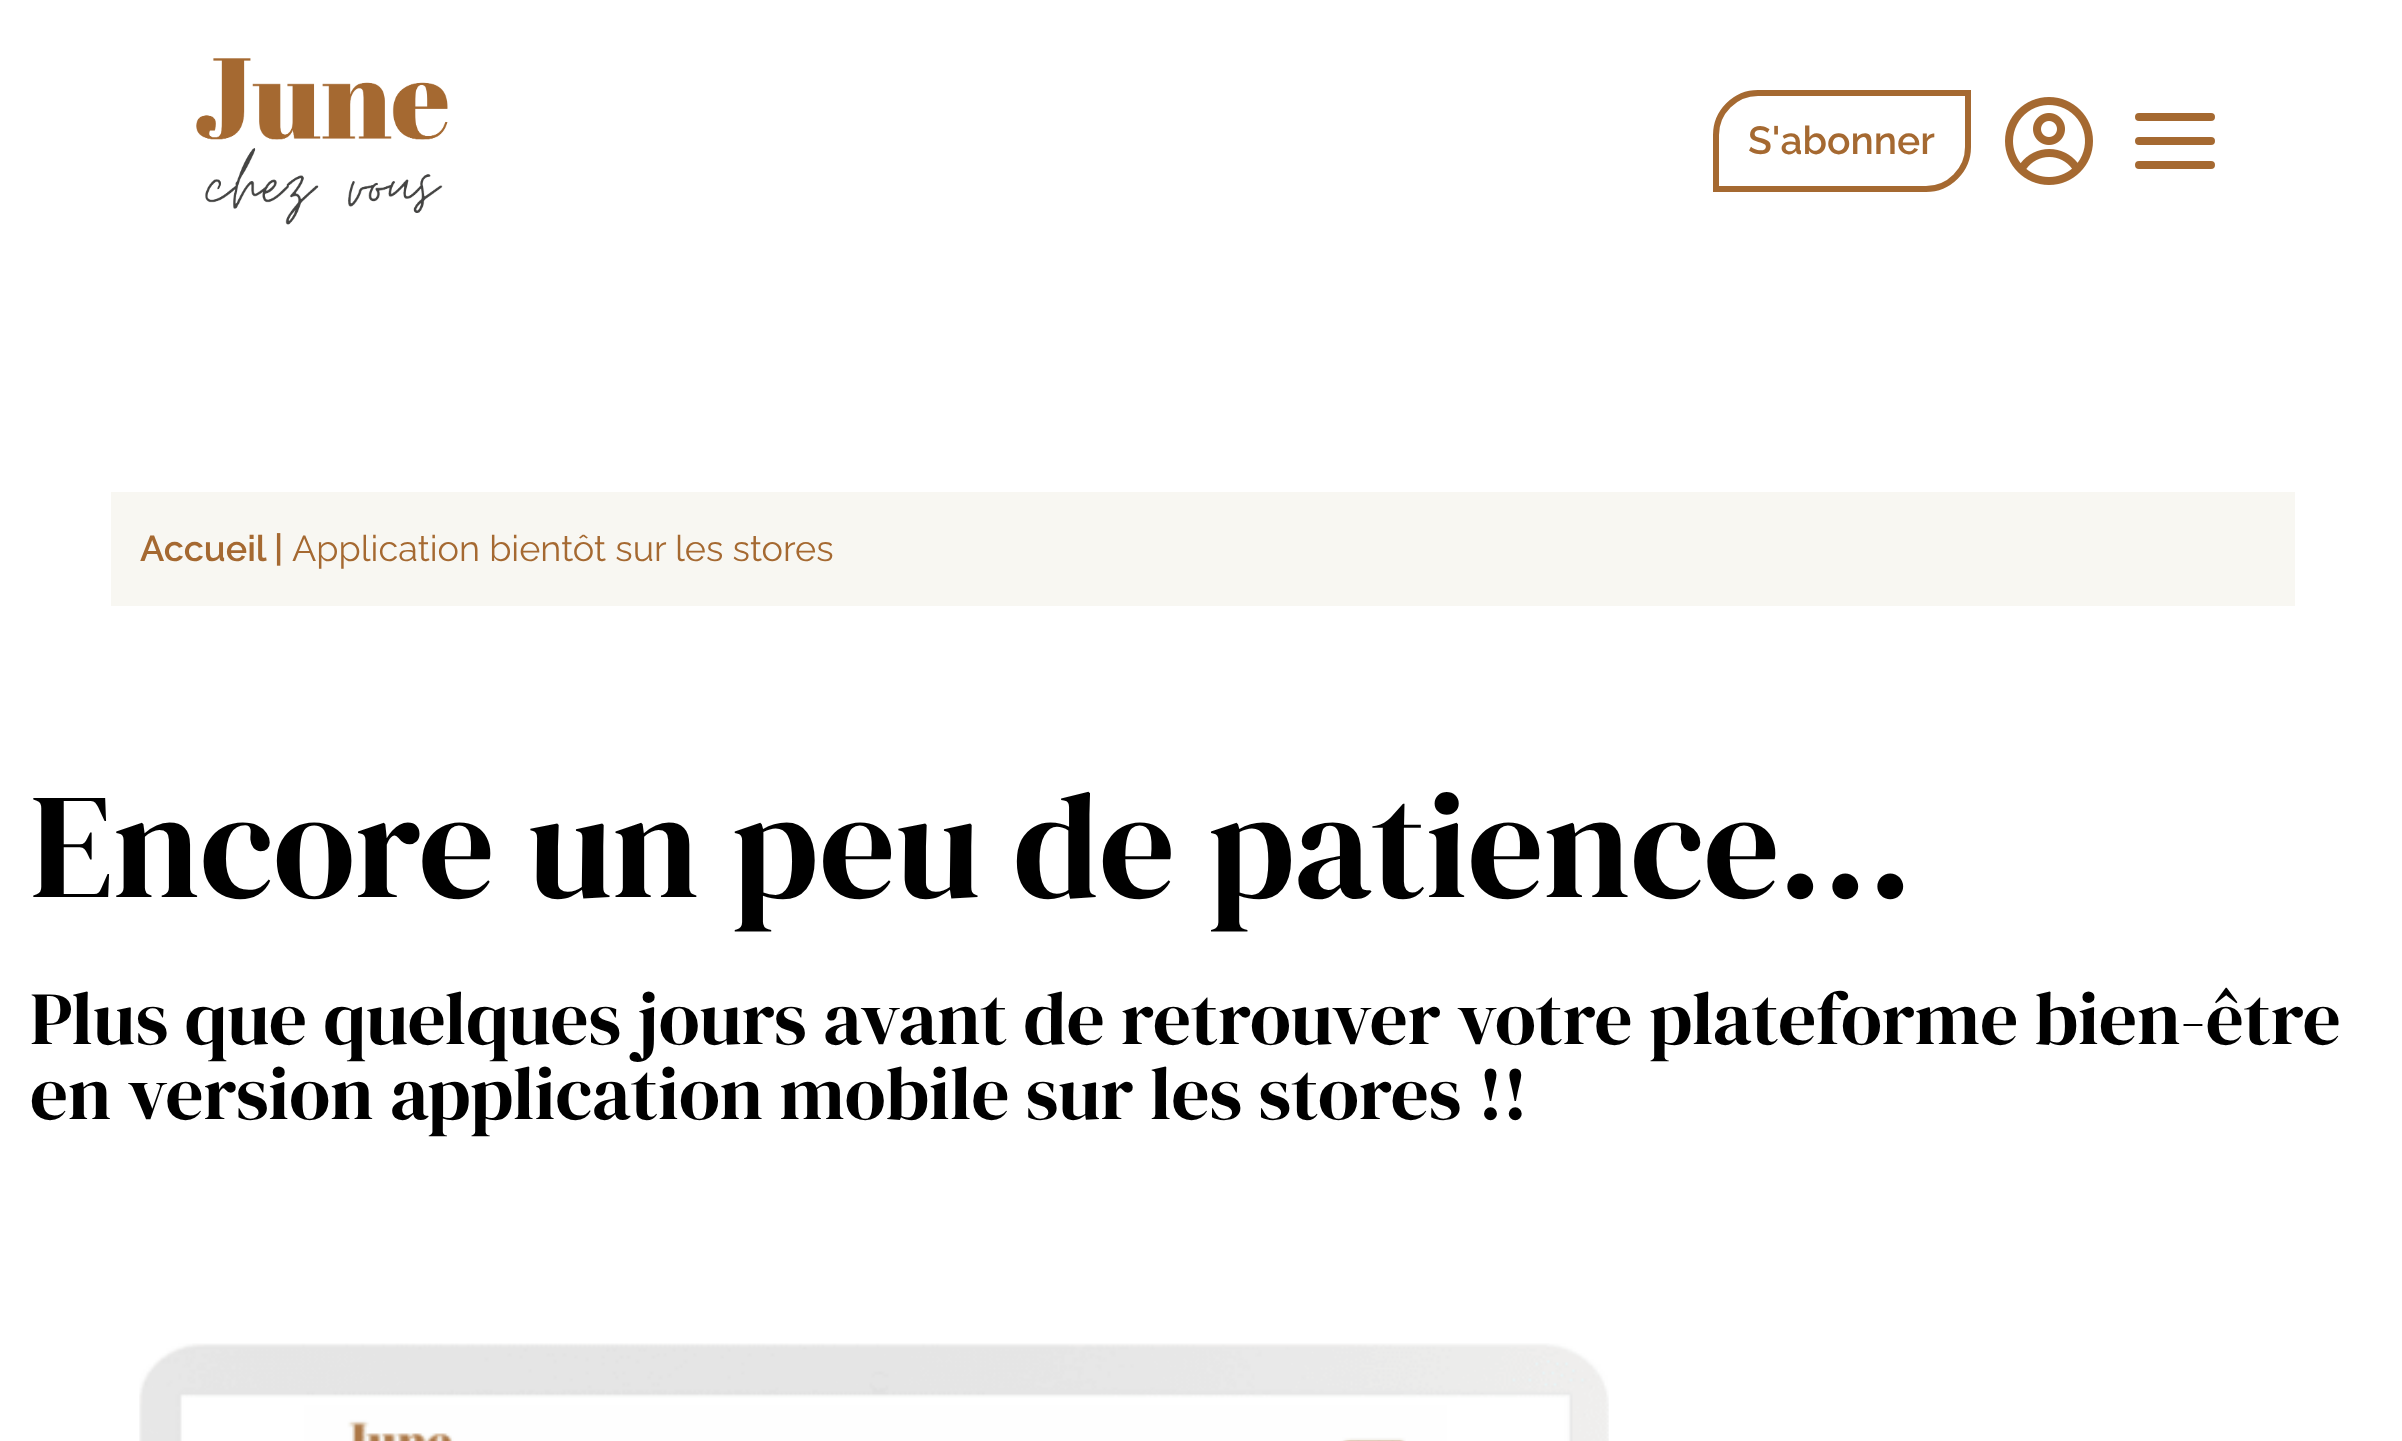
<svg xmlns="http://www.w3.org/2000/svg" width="2402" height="1441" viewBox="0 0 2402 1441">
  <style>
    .t1 { font: 600 39px Raleway; fill: #a56931; }
    .t2 { font: 600 36px Raleway; fill: #a56931; }
    .t3 { font: 36px Raleway; fill: #a56931; }
    .t4 { font: 150px DM Serif Display; fill: #000; }
    .t5 { font: 75px DM Serif Display; fill: #000; }
  </style>
  <rect width="100%" height="100%" fill="#fff"/>
  <image x="196" y="58" width="252" height="167" href="images/1.png"/>
  <path d="M1758 93H1968V147C1968 170 1949 189 1926 189H1716V135C1716 112 1735 93 1758 93Z" fill="none" stroke="#a56931" stroke-width="6"/>
  <text x="1748" y="154" class="t1">S'abonner</text>
  <image x="2005" y="97" width="88" height="88" href="images/2.png"/>
  <path d="M2139 117H2211M2139 141H2211M2139 165H2211" fill="none" stroke="#a56931" stroke-width="8" stroke-linecap="round" stroke-linejoin="round"/>
  <rect x="111" y="492" width="2184" height="114" fill="#f8f7f2"/>
  <text x="140" y="561" class="t2">Accueil</text>
  <text x="274" y="561" class="t2">|</text>
  <text x="292" y="561" class="t3">Application bientôt sur les stores</text>
  <text x="30" y="897" class="t4">Encore un peu de patience...</text>
  <text x="30" y="1044" class="t5">Plus que quelques jours avant de retrouver votre plateforme bien-être</text>
  <text x="30" y="1119" class="t5">en version application mobile sur les stores !!</text>
  <image x="139" y="1343" width="1470" height="98" href="images/3.png"/>
</svg>
